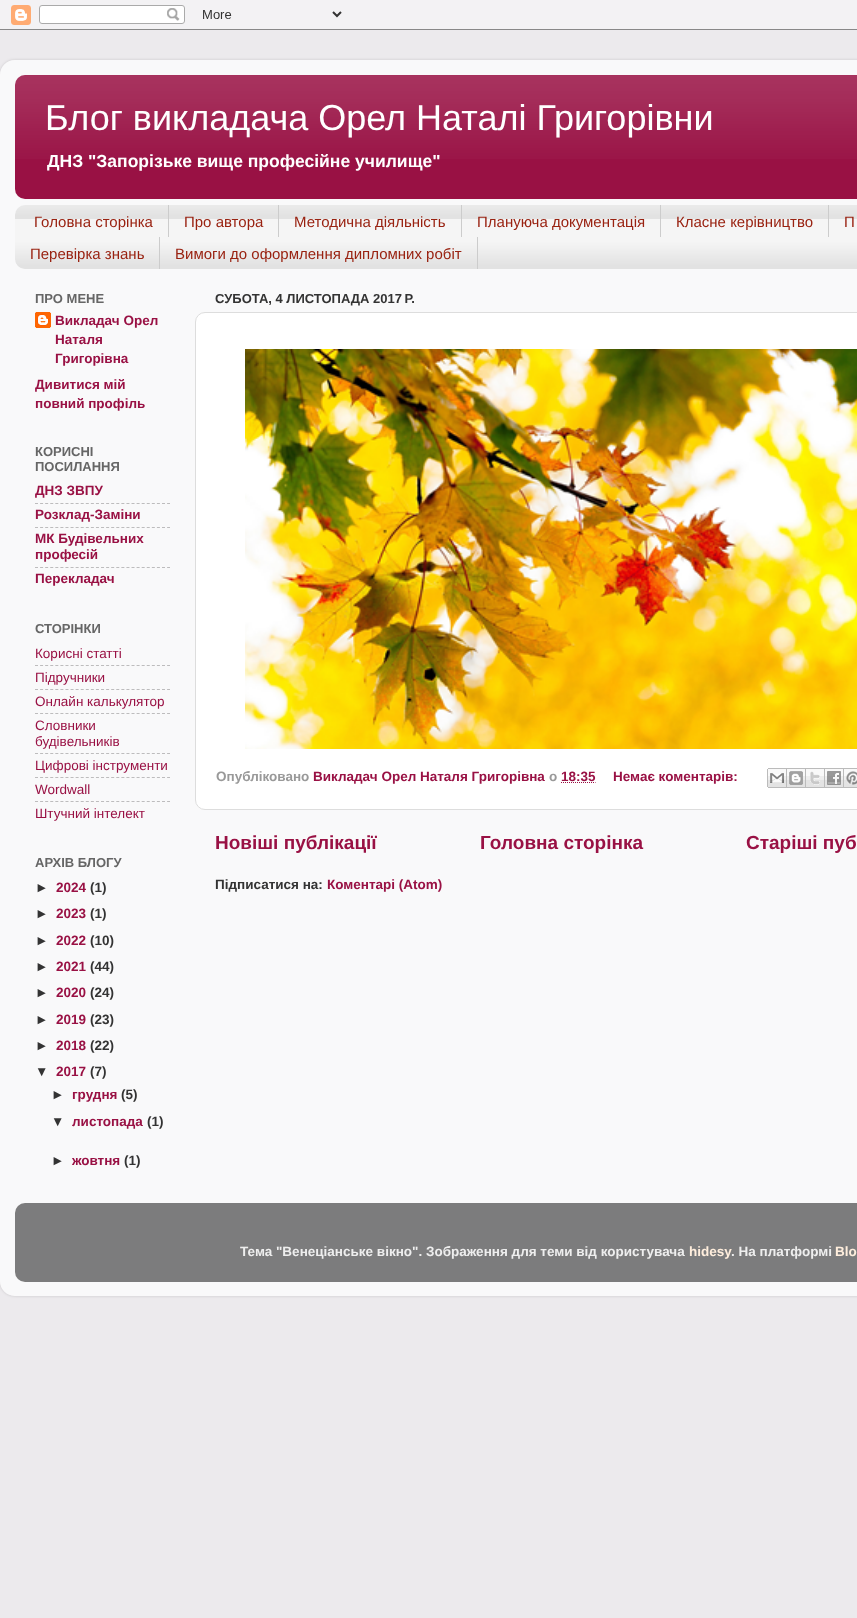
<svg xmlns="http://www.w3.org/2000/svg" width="857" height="1618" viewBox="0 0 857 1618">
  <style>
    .t1 { font: 36px Liberation Sans; fill: #fff; }
    .t2 { font: bold 17.55px Liberation Sans; fill: #fff; }
    .t3 { font: 15px Liberation Sans; fill: #921; }
    .t4 { font: bold 13px Liberation Sans; fill: #666; }
    .t5 { font: bold 13.5px Liberation Sans; fill: #914; }
    .t6 { font: 13.5px Liberation Sans; fill: #914; }
    .t7 { font: bold 13.5px Liberation Sans; fill: #333; }
    .t8 { font: bold 13px Liberation Sans; fill: #333; }
    .t9 { font: bold 13.5px Liberation Sans; fill: #999; }
    .t10 { font: bold 19px Liberation Sans; fill: #914; }
    .t11 { font: bold 13.5px Liberation Sans; fill: #eee; }
    .t12 { font: bold 13.5px Liberation Sans; fill: #fed; }
  </style>
  <defs>
    <clipPath id="clip1"><path d="M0 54H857V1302H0ZM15 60H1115C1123.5 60 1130 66.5 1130 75V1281C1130 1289.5 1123.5 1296 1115 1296H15C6.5 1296 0 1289.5 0 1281V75C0 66.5 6.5 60 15 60Z" clip-rule="evenodd"/></clipPath>
  </defs>
  <rect width="100%" height="100%" fill="#eceaed"/>
  <image x="0" y="0" width="857" height="30" href="images/1.png"/>
  <g clip-path="url(#clip1)">
    <rect x="0" y="60" width="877" height="1236" rx="15" fill="#00000026" filter="blur(1.5px)"/>
  </g>
  <image x="0" y="60" width="857" height="1236" href="images/2.png"/>
  <rect x="15" y="75" width="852" height="124" rx="10" fill="#914"/>
  <image x="15" y="75" width="842" height="84" href="images/3.png"/>
  <text x="45" y="130" class="t1">Блог викладача Орел Наталі Григорівни</text>
  <text x="47" y="167" class="t2">ДНЗ "Запорізьке вище професійне училище"</text>
  <rect x="15" y="205" width="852" height="64" rx="10" fill="#f5f5f5"/>
  <image x="15" y="205" width="842" height="64" href="images/4.png"/>
  <rect x="168" y="205" width="1" height="32" fill="#ccc"/>
  <text x="34" y="227" class="t3">Головна сторінка</text>
  <rect x="278" y="205" width="1" height="32" fill="#ccc"/>
  <text x="184" y="227" class="t3">Про автора</text>
  <rect x="461" y="205" width="1" height="32" fill="#ccc"/>
  <text x="294" y="227" class="t3">Методична діяльність</text>
  <rect x="660" y="205" width="1" height="32" fill="#ccc"/>
  <text x="477" y="227" class="t3">Плануюча документація</text>
  <rect x="828" y="205" width="1" height="32" fill="#ccc"/>
  <text x="676" y="227" class="t3">Класне керівництво</text>
  <text x="844" y="227" class="t3">П</text>
  <rect x="159" y="237" width="1" height="32" fill="#ccc"/>
  <text x="30" y="259" class="t3">Перевірка знань</text>
  <rect x="477" y="237" width="1" height="32" fill="#ccc"/>
  <text x="175" y="259" class="t3">Вимоги до оформлення дипломних робіт</text>
  <text x="35" y="303" class="t4">ПРО МЕНЕ</text>
  <image x="35" y="312" width="16" height="16" href="images/5.png"/>
  <text x="55" y="325" class="t5">Викладач Орел</text>
  <text x="55" y="344" class="t5">Наталя</text>
  <text x="55" y="363" class="t5">Григорівна</text>
  <text x="35" y="389" class="t5">Дивитися мій</text>
  <text x="35" y="408" class="t5">повний профіль</text>
  <text x="35" y="456" class="t4">КОРИСНІ</text>
  <text x="35" y="471" class="t4">ПОСИЛАННЯ</text>
  <text x="35" y="495" class="t5">ДНЗ ЗВПУ</text>
  <path d="M35 503.5H170" fill="none" stroke="#bdbcbd" stroke-dasharray="3 2.08"/>
  <text x="35" y="519" class="t5">Розклад-Заміни</text>
  <path d="M35 527.5H170" fill="none" stroke="#bdbcbd" stroke-dasharray="3 2.08"/>
  <text x="35" y="543" class="t5">МК Будівельних</text>
  <text x="35" y="559" class="t5">професій</text>
  <path d="M35 567.5H170" fill="none" stroke="#bdbcbd" stroke-dasharray="3 2.08"/>
  <text x="35" y="583" class="t5">Перекладач</text>
  <text x="35" y="633" class="t4">СТОРІНКИ</text>
  <text x="35" y="658" class="t6">Корисні статті</text>
  <path d="M35 665.5H170" fill="none" stroke="#bdbcbd" stroke-dasharray="3 2.08"/>
  <text x="35" y="682" class="t6">Підручники</text>
  <path d="M35 689.5H170" fill="none" stroke="#bdbcbd" stroke-dasharray="3 2.08"/>
  <text x="35" y="706" class="t6">Онлайн калькулятор</text>
  <path d="M35 713.5H170" fill="none" stroke="#bdbcbd" stroke-dasharray="3 2.08"/>
  <text x="35" y="730" class="t6">Словники</text>
  <text x="35" y="746" class="t6">будівельників</text>
  <path d="M35 753.5H170" fill="none" stroke="#bdbcbd" stroke-dasharray="3 2.08"/>
  <text x="35" y="770" class="t6">Цифрові інструменти</text>
  <path d="M35 777.5H170" fill="none" stroke="#bdbcbd" stroke-dasharray="3 2.08"/>
  <text x="35" y="794" class="t6">Wordwall</text>
  <path d="M35 801.5H170" fill="none" stroke="#bdbcbd" stroke-dasharray="3 2.08"/>
  <text x="35" y="818" class="t6">Штучний інтелект</text>
  <text x="35" y="867" class="t4">АРХІВ БЛОГУ</text>
  <text x="35" y="892" class="t7">►</text>
  <text x="56" y="892" class="t5">2024</text>
  <text x="90" y="892" class="t7">(1)</text>
  <text x="35" y="918" class="t7">►</text>
  <text x="56" y="918" class="t5">2023</text>
  <text x="90" y="918" class="t7">(1)</text>
  <text x="35" y="945" class="t7">►</text>
  <text x="56" y="945" class="t5">2022</text>
  <text x="90" y="945" class="t7">(10)</text>
  <text x="35" y="971" class="t7">►</text>
  <text x="56" y="971" class="t5">2021</text>
  <text x="90" y="971" class="t7">(44)</text>
  <text x="35" y="997" class="t7">►</text>
  <text x="56" y="997" class="t5">2020</text>
  <text x="90" y="997" class="t7">(24)</text>
  <text x="35" y="1024" class="t7">►</text>
  <text x="56" y="1024" class="t5">2019</text>
  <text x="90" y="1024" class="t7">(23)</text>
  <text x="35" y="1050" class="t7">►</text>
  <text x="56" y="1050" class="t5">2018</text>
  <text x="90" y="1050" class="t7">(22)</text>
  <text x="35" y="1076" class="t7">▼</text>
  <text x="56" y="1076" class="t5">2017</text>
  <text x="90" y="1076" class="t7">(7)</text>
  <text x="51" y="1099" class="t7">►</text>
  <text x="72" y="1099" class="t5">грудня</text>
  <text x="121" y="1099" class="t7">(5)</text>
  <text x="51" y="1126" class="t7">▼</text>
  <text x="72" y="1126" class="t5">листопада</text>
  <text x="147" y="1126" class="t7">(1)</text>
  <text x="51" y="1165" class="t7">►</text>
  <text x="72" y="1165" class="t5">жовтня</text>
  <text x="124" y="1165" class="t7">(1)</text>
  <text x="215" y="303" class="t8">СУБОТА, 4 ЛИСТОПАДА 2017 Р.</text>
  <rect x="195.5" y="312.5" width="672" height="497" rx="9.5" fill="#fff" stroke="#ddd"/>
  <image x="245" y="349" width="612" height="400" href="images/6.png"/>
  <text x="216" y="781" class="t9">Опубліковано</text>
  <text x="313" y="781" class="t5">Викладач Орел Наталя Григорівна</text>
  <text x="549" y="781" class="t9">о</text>
  <text x="561" y="781" class="t5">18:35</text>
  <path d="M561 782.5H595.5" fill="none" stroke="#914" stroke-dasharray="1 1"/>
  <text x="613" y="781" class="t5">Немає коментарів:</text>
  <image x="767" y="768" width="20" height="20" href="images/7.png"/>
  <image x="787" y="768" width="19" height="20" href="images/8.png"/>
  <image x="806" y="768" width="19" height="20" href="images/9.png"/>
  <image x="825" y="768" width="19" height="20" href="images/10.png"/>
  <image x="844" y="768" width="13" height="20" href="images/11.png"/>
  <text x="215" y="849" class="t10">Новіші публікації</text>
  <text x="480" y="849" class="t10">Головна сторінка</text>
  <text x="746" y="849" class="t10">Старіші пуб</text>
  <text x="215" y="889" class="t7">Підписатися на:</text>
  <text x="327" y="889" class="t5">Коментарі (Atom)</text>
  <image x="15" y="1203" width="842" height="79" href="images/12.png"/>
  <text x="240" y="1256" class="t11">Тема "Венеціанське вікно". Зображення для теми від користувача</text>
  <text x="689" y="1256" class="t12">hidesy</text>
  <text x="731" y="1256" class="t11">. На платформі</text>
  <text x="835" y="1256" class="t12">Blo</text>
</svg>
